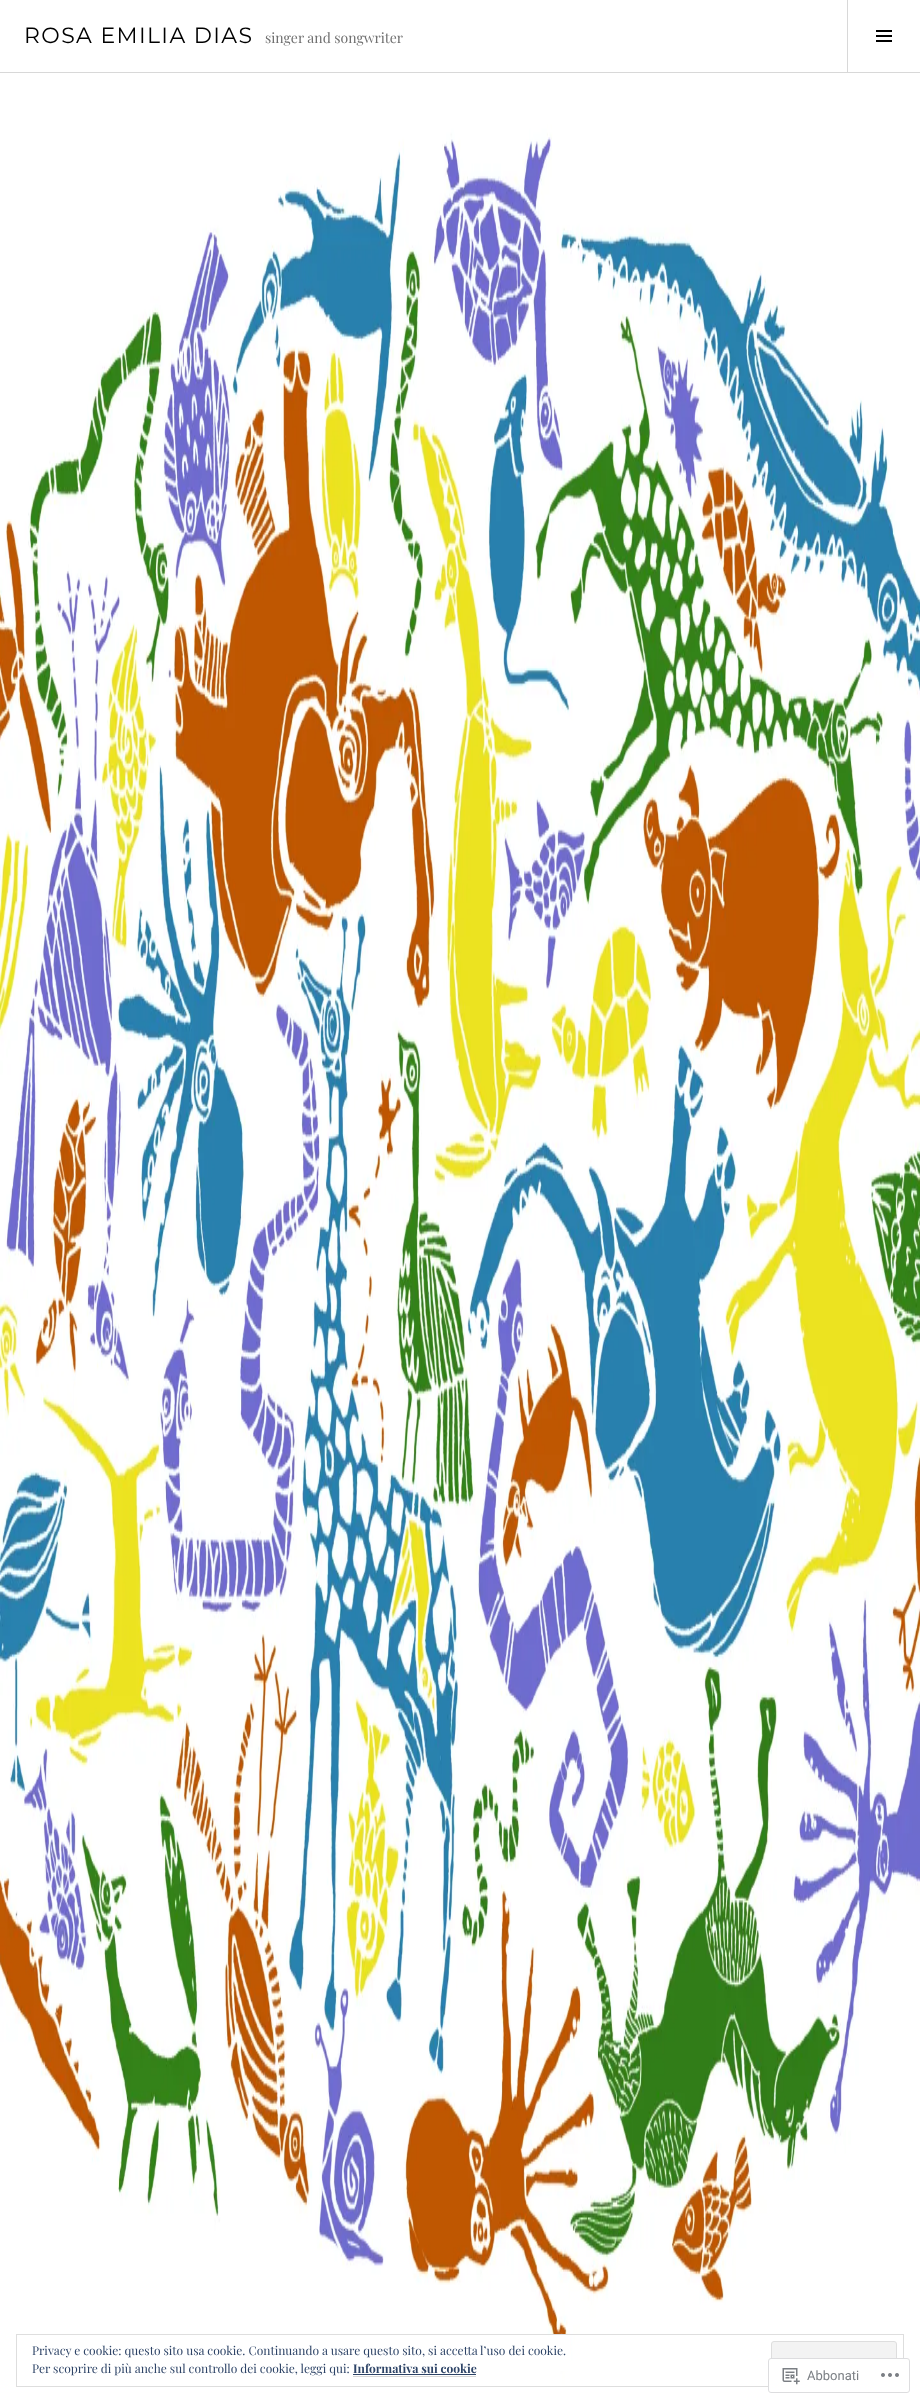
<svg xmlns="http://www.w3.org/2000/svg" width="920" height="2403" viewBox="0 0 920 2403">
  <style>
    .t1 { font: 22px Montserrat; letter-spacing: 1.4px; fill: #000; }
    .t2 { font: 14px Playfair Display; fill: #707070; }
    .t3 { font: 12px Playfair Display; fill: #2e4467; }
    .t4 { font: bold 12px Playfair Display; fill: #2e4467; }
    .t5 { font: 13px Roboto; fill: #7b7f84; }
  </style>
  <rect width="100%" height="100%" fill="#fff"/>
  <rect x="0" y="72" width="920" height="1" fill="#d8d8d8"/>
  <text x="24" y="43" class="t1">ROSA EMILIA DIAS</text>
  <text x="265" y="43" class="t2">singer and songwriter</text>
  <rect x="847" y="0" width="1" height="72" fill="#d8d8d8"/>
  <image x="876" y="30" width="16" height="12" href="images/1.png"/>
  <image x="0" y="73" width="920" height="2330" href="images/2.png"/>
  <rect x="551" y="2335" width="19" height="36" fill="#fff"/>
  <rect x="16.5" y="2334.5" width="887" height="52" fill="none" stroke="#dedede"/>
  <text x="32" y="2355" class="t3">Privacy e cookie: questo sito usa cookie. Continuando a usare questo sito, si accetta l’uso dei cookie.</text>
  <rect x="771.5" y="2341.5" width="125" height="38" rx="2.5" fill="#f3f3f3" stroke="#dedede"/>
  <text x="32" y="2373" class="t3">Per scoprire di più anche sul controllo dei cookie, leggi qui:</text>
  <text x="353" y="2373" class="t4">Informativa sui cookie</text>
  <rect x="353" y="2376" width="123" height="1" fill="#d8d8d8"/>
  <rect x="353" y="2374" width="123" height="1" fill="#2e4467"/>
  <rect x="768" y="2358" width="142" height="35" rx="3" fill="#fffffffa"/>
  <rect x="768.5" y="2358.5" width="141" height="34" rx="2.5" fill="none" stroke="#dcdcdefa"/>
  <image x="782" y="2368" width="18" height="17" href="images/3.png"/>
  <text x="807" y="2380" class="t5">Abbonati</text>
  <image x="881" y="2373" width="18" height="4" href="images/4.png"/>
</svg>
